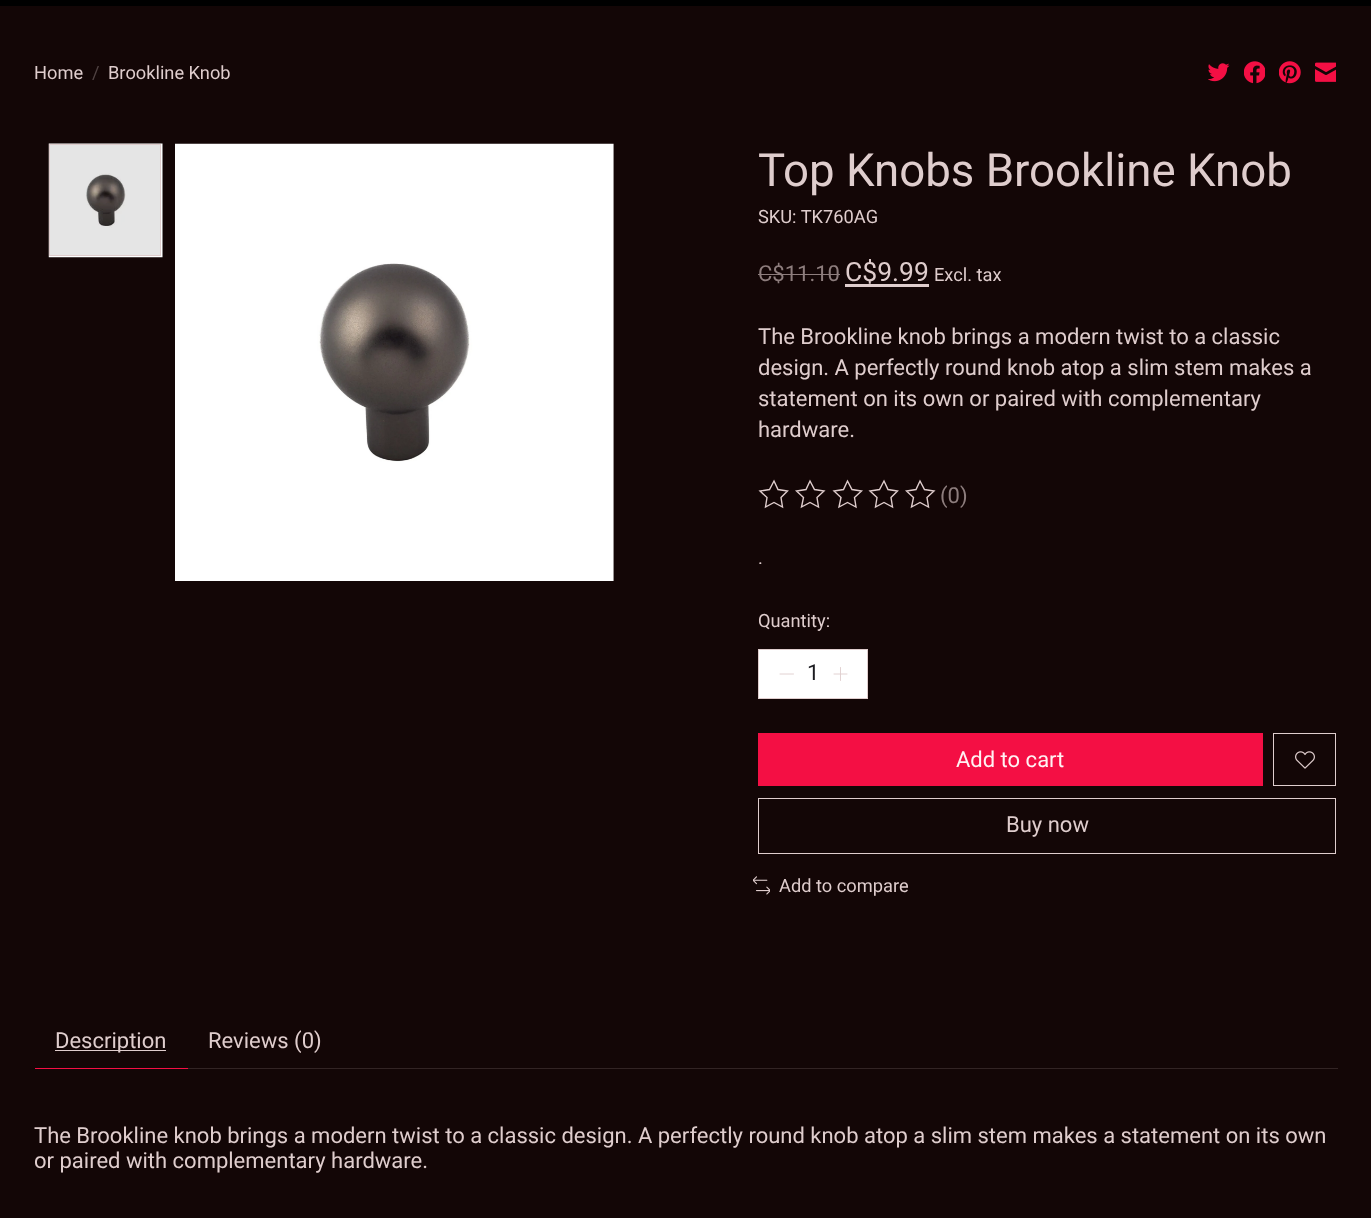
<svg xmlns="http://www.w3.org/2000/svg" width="1371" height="1218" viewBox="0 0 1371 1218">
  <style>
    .t1 { font: 18.25px Roboto; fill: #dfcdcd; }
    .t2 { font: 18.25px Roboto; fill: #504242; }
    .t3 { font: 45.6px Roboto; fill: #dfcdcd; }
    .t4 { font: 22px Roboto; fill: #8d7d7d; }
    .t5 { font: 26.5px Roboto; fill: #dfcdcd; }
    .t6 { font: 22px Roboto; fill: #dfcdcd; }
    .t7 { font: 22px Roboto; fill: #1c1c21; }
    .t8 { font: 22px Roboto; fill: #fff3f3; }
  </style>
  <rect width="100%" height="100%" fill="#130606"/>
  <rect x="0" y="0" width="1371" height="6" fill="#000"/>
  <text x="34" y="79" class="t1">Home</text>
  <text x="92" y="79" class="t2">/</text>
  <text x="108" y="79" class="t1">Brookline Knob</text>
  <image x="1208" y="63" width="22" height="19" href="images/1.png"/>
  <image x="1244" y="61" width="21" height="23" href="images/2.png"/>
  <image x="1279" y="61" width="22" height="23" href="images/3.png"/>
  <image x="1315" y="62" width="21" height="20" href="images/4.png"/>
  <image x="48" y="143" width="115" height="115" href="images/5.png"/>
  <rect x="49.5" y="144.5" width="111" height="111" fill="none" stroke="#dfcdcd"/>
  <image x="175" y="143" width="439" height="438" href="images/6.png"/>
  <text x="758" y="186" class="t3">Top Knobs Brookline Knob</text>
  <text x="758" y="223" class="t1">SKU: TK760AG</text>
  <text x="758" y="281" class="t4">C$11.10</text>
  <rect x="758" y="274" width="82" height="1" fill="#8d7d7d"/>
  <text x="845" y="281" class="t5">C$9.99</text>
  <rect x="845" y="284" width="84" height="3" fill="#dfcdcd"/>
  <text x="934" y="281" class="t1">Excl. tax</text>
  <text x="758" y="344" class="t6">The Brookline knob brings a modern twist to a classic</text>
  <text x="758" y="375" class="t6">design. A perfectly round knob atop a slim stem makes a</text>
  <text x="758" y="406" class="t6">statement on its own or paired with complementary</text>
  <text x="758" y="437" class="t6">hardware.</text>
  <path d="M774 481L778 489.5L787.5 491L781 497.5L782.5 507L774 502.5L765.5 507L767 497.5L760 491L769.5 489.5Z" fill="none" stroke="#dfcdcd" stroke-width="1.4"/>
  <path d="M810 481L814.5 489.5L824 491L817 497.5L818.5 507L810 502.5L801.5 507L803.5 497.5L796.5 491L806 489.5Z" fill="none" stroke="#dfcdcd" stroke-width="1.4"/>
  <path d="M847.5 481L852 489.5L861.5 491L854.5 497.5L856 507L847.5 502.5L839 507L841 497.5L834 491L843.5 489.5Z" fill="none" stroke="#dfcdcd" stroke-width="1.4"/>
  <path d="M884 481L888 489.5L897.5 491L891 497.5L892.5 507L884 502.5L875.5 507L877 497.5L870 491L879.5 489.5Z" fill="none" stroke="#dfcdcd" stroke-width="1.4"/>
  <path d="M920 481L924.5 489.5L934 491L927 497.5L928.5 507L920 502.5L911.5 507L913.5 497.5L906.5 491L916 489.5Z" fill="none" stroke="#dfcdcd" stroke-width="1.4"/>
  <text x="940" y="503" class="t4">(0)</text>
  <text x="758" y="564" class="t1">.</text>
  <text x="758" y="627" class="t1">Quantity:</text>
  <rect x="758.5" y="649.5" width="109" height="49" fill="#fff" stroke="#dfcdcd"/>
  <path d="M780 674H793.5" fill="none" stroke="#dfcdcd" stroke-width="0.9" stroke-linecap="round" stroke-linejoin="round"/>
  <text x="807" y="680" class="t7">1</text>
  <path d="M840.5 667.5V680.5M834 674H847" fill="none" stroke="#dfcdcd" stroke-width="0.9" stroke-linecap="round" stroke-linejoin="round"/>
  <rect x="758" y="733" width="505" height="53" fill="#f40f44"/>
  <text x="956" y="767" class="t8">Add to cart</text>
  <rect x="1273.5" y="733.5" width="62" height="52" fill="none" stroke="#dfcdcd"/>
  <image x="1295" y="751" width="20" height="18" href="images/7.png"/>
  <rect x="758.5" y="798.5" width="577" height="55" fill="none" stroke="#dfcdcd"/>
  <text x="1006" y="832" class="t6">Buy now</text>
  <image x="753" y="876" width="17" height="19" href="images/8.png"/>
  <text x="779" y="892" class="t1">Add to compare</text>
  <rect x="35" y="1068" width="153" height="1" fill="#f40f44"/>
  <rect x="55" y="1050" width="111" height="1" fill="#dfcdcd"/>
  <text x="55" y="1048" class="t6">Description</text>
  <text x="208" y="1048" class="t6">Reviews (0)</text>
  <rect x="188" y="1068" width="1150" height="1" fill="#322424"/>
  <text x="34" y="1143" class="t6">The Brookline knob brings a modern twist to a classic design. A perfectly round knob atop a slim stem makes a statement on its own</text>
  <text x="34" y="1168" class="t6">or paired with complementary hardware.</text>
</svg>
